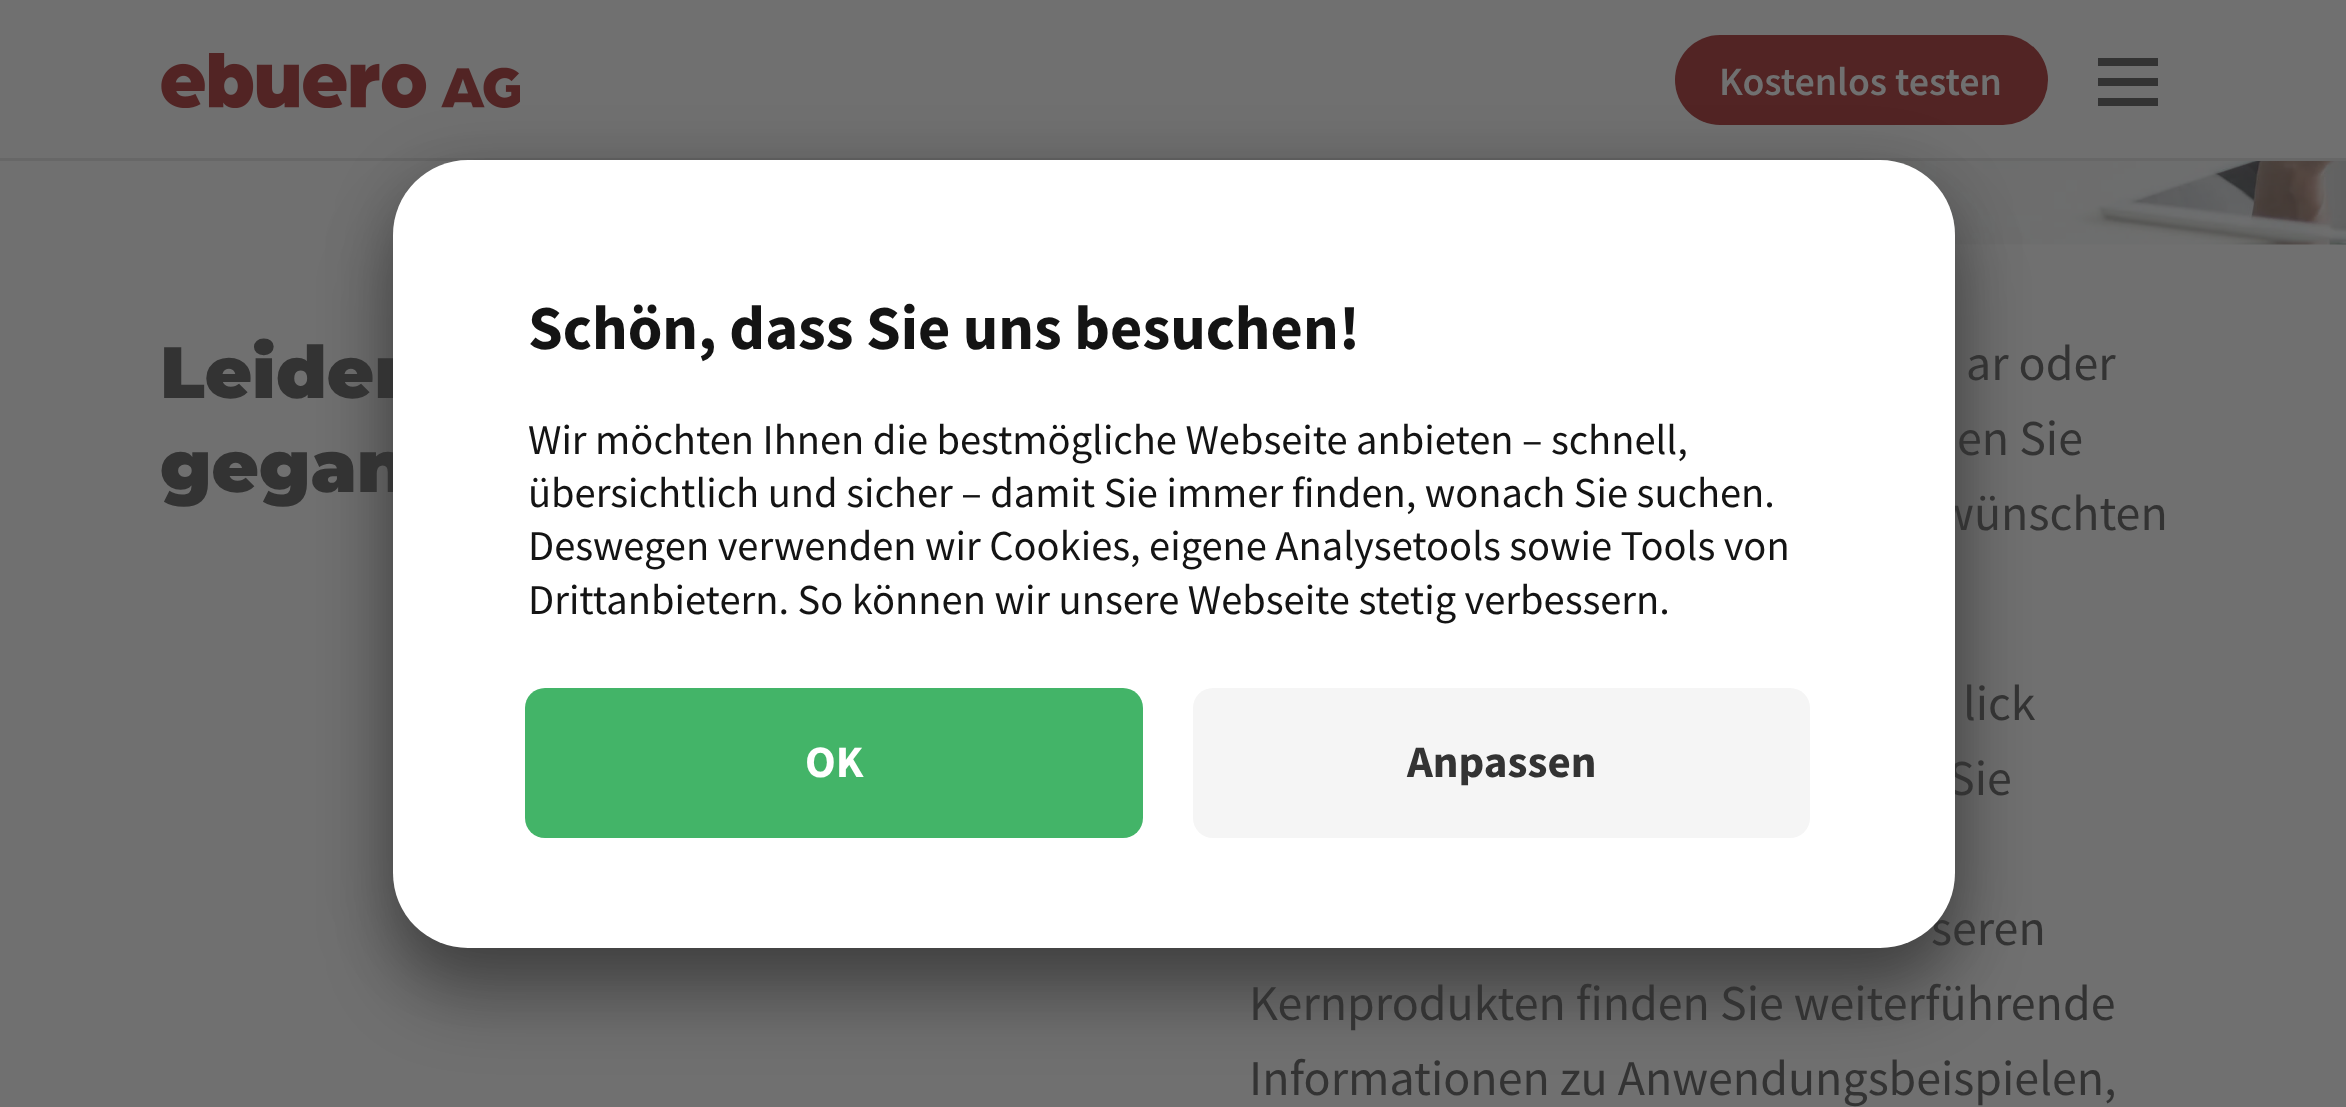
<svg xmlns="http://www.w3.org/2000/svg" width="2346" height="1107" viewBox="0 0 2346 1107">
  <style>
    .t1 { font: 600 40px Source Sans Pro; fill: #707070; }
    .t2 { font: 100 72.5px Montserrat; fill: #333; }
    .t3 { font: 50px Source Sans Pro; fill: #333; }
    .t4 { font: bold 62.5px Source Sans Pro; fill: #141414; }
    .t5 { font: 42.5px Source Sans Pro; fill: #141414; }
    .t6 { font: bold 45px Source Sans Pro; fill: #fff; }
    .t7 { font: bold 45px Source Sans Pro; fill: #333; }
  </style>
  <rect width="100%" height="100%" fill="#707070"/>
  <rect x="0" y="158" width="2346" height="3" fill="#676767"/>
  <image x="161" y="53" width="359" height="55" href="images/1.png"/>
  <rect x="1675" y="35" width="373" height="90" rx="45" fill="#522424"/>
  <text x="1719" y="95" class="t1">Kostenlos testen</text>
  <rect x="2098" y="58" width="60" height="8" fill="#333"/>
  <rect x="2098" y="78" width="60" height="8" fill="#333"/>
  <rect x="2098" y="98" width="60" height="8" fill="#333"/>
  <image x="1892" y="161" width="454" height="84" href="images/2.png"/>
  <rect x="393" y="210" width="1562" height="788" rx="75" fill="#0000004d" filter="blur(35px)"/>
  <rect x="393" y="173" width="1562" height="787" rx="75" fill="#00000038" filter="blur(32.5px)"/>
  <text x="160" y="398" class="t2">Leider</text>
  <text x="160" y="492" class="t2">gegan</text>
  <text x="1938" y="530" class="t3">wünschten</text>
  <text x="1948" y="795" class="t3">Sie</text>
  <text x="1931" y="945" class="t3">seren</text>
  <rect x="393" y="160" width="1562" height="788" rx="75" fill="#fff"/>
  <text x="528" y="349" class="t4">Schön, dass Sie uns besuchen!</text>
  <text x="528" y="454" class="t5">Wir möchten Ihnen die bestmögliche Webseite anbieten – schnell,</text>
  <text x="528" y="507" class="t5">übersichtlich und sicher – damit Sie immer finden, wonach Sie suchen.</text>
  <text x="528" y="560" class="t5">Deswegen verwenden wir Cookies, eigene Analysetools sowie Tools von</text>
  <text x="528" y="614" class="t5">Drittanbietern. So können wir unsere Webseite stetig verbessern.</text>
  <rect x="525" y="688" width="618" height="150" rx="20" fill="#43b468"/>
  <text x="805" y="777" class="t6">OK</text>
  <rect x="1193" y="688" width="617" height="150" rx="20" fill="#f5f5f5"/>
  <text x="1407" y="777" class="t7">Anpassen</text>
  <text x="1966" y="380" class="t3">ar oder</text>
  <text x="1957" y="455" class="t3">en Sie</text>
  <text x="1963" y="720" class="t3">lick</text>
  <text x="1249" y="1020" class="t3">Kernprodukten finden Sie weiterführende</text>
  <text x="1249" y="1095" class="t3">Informationen zu Anwendungsbeispielen,</text>
</svg>
